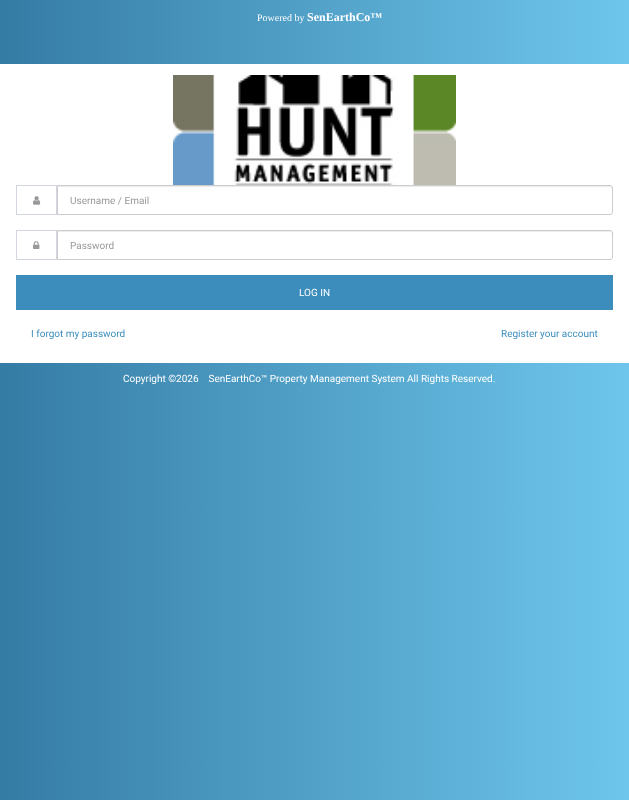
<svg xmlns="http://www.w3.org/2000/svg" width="629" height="800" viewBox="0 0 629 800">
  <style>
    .t1 { font: 10px Liberation Serif; fill: #fff; }
    .t2 { font: bold 12px Liberation Serif; fill: #fff; }
    .t3 { font: 10px Roboto; fill: #999; }
    .t4 { font: 10px Roboto; fill: #fff; }
    .t5 { font: 10px Roboto; fill: #3c8dbc; }
  </style>
  <defs>
    <linearGradient id="g1" gradientUnits="userSpaceOnUse" x1="0" y1="400" x2="629" y2="400"><stop offset="0" stop-color="#357ca5"/><stop offset="1" stop-color="#6ec6ec"/></linearGradient>
  </defs>
  <rect width="100%" height="100%" fill="#fff"/>
  <rect x="0" y="0" width="629" height="800" fill="url(#g1)"/>
  <text x="257" y="21" class="t1">Powered by</text>
  <text x="307" y="21" class="t2">SenEarthCo™</text>
  <rect x="0" y="64" width="629" height="299" fill="#fff"/>
  <image x="173" y="75" width="283" height="110" href="images/1.png"/>
  <rect x="16.5" y="185.5" width="40" height="29" fill="none" stroke="#d2d6de"/>
  <image x="33" y="196" width="8" height="9" href="images/2.png"/>
  <path d="M58 187H610C611 187 612 188 612 189V187L610 186H58Z" fill="#ececec"/>
  <path d="M57.5 185.5H610C611.5 185.5 612.5 186.5 612.5 188V212C612.5 213.5 611.5 214.5 610 214.5H57.5Z" fill="none" stroke="#ccc"/>
  <text x="70" y="204" class="t3">Username / Email</text>
  <rect x="16.5" y="230.5" width="40" height="29" fill="none" stroke="#d2d6de"/>
  <image x="33" y="241" width="7" height="8" href="images/3.png"/>
  <path d="M58 232H610C611 232 612 233 612 234V232L610 231H58Z" fill="#ececec"/>
  <path d="M57.5 230.5H610C611.5 230.5 612.5 231.5 612.5 233V257C612.5 258.5 611.5 259.5 610 259.5H57.5Z" fill="none" stroke="#ccc"/>
  <text x="70" y="249" class="t3">Password</text>
  <rect x="16" y="275" width="597" height="35" fill="#3c8dbc"/>
  <text x="299" y="296" class="t4">LOG IN</text>
  <text x="31" y="337" class="t5">I forgot my password</text>
  <text x="501" y="337" class="t5">Register your account</text>
  <text x="123" y="382" class="t4" xml:space="preserve">Copyright ©2026    SenEarthCo™ Property Management System All Rights Reserved.</text>
</svg>
